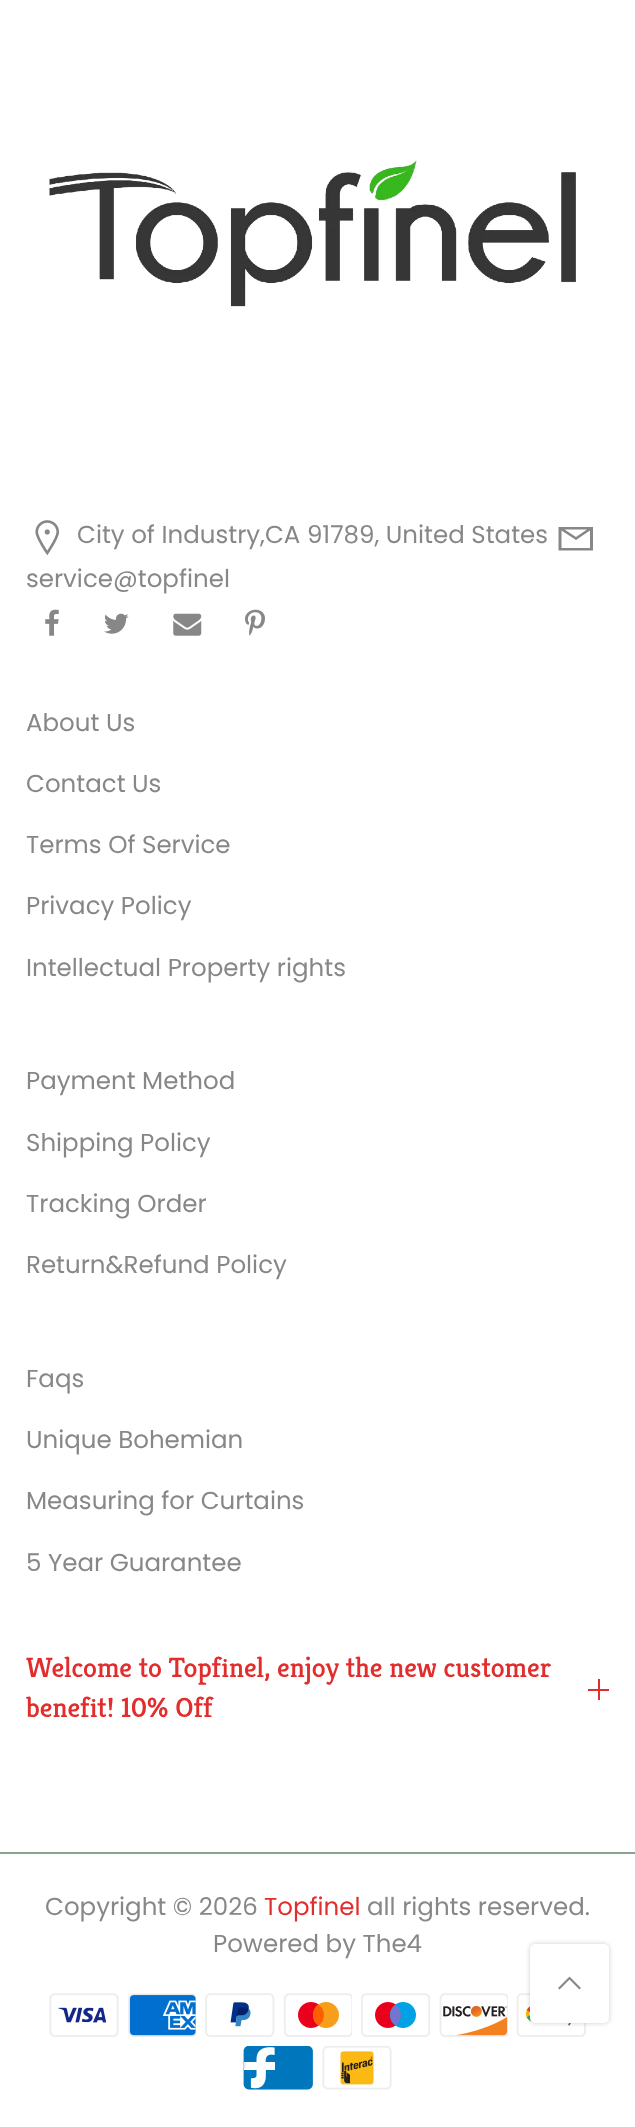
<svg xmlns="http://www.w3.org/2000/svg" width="635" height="2127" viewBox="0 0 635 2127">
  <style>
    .t1 { font: 24.5px Poppins; fill: #878787; }
    .t2 { font: 500 28px Kreon; fill: #e22d2d; }
    .t3 { font: 24.5px Poppins; fill: #e22d2d; }
  </style>
  <rect width="100%" height="100%" fill="#fff"/>
  <rect x="0" y="1852" width="635" height="2" fill="#88a490"/>
  <image x="49" y="159" width="527" height="148" href="images/1.png"/>
  <image x="35" y="520" width="24" height="36" href="images/2.png"/>
  <text x="77" y="543" class="t1">City of Industry,CA 91789, United States</text>
  <path d="M558.5 527V550.5H593V527ZM564.5 529.5H587L576 537ZM561.5 530.5L576 540L590 530.5V548H561.5Z" fill="#878787"/>
  <text x="26" y="587" class="t1">service@topfinel</text>
  <image x="45" y="609" width="14" height="27" href="images/3.png"/>
  <image x="104" y="613" width="25" height="21" href="images/4.png"/>
  <image x="173" y="613" width="29" height="23" href="images/5.png"/>
  <image x="245" y="609" width="20" height="27" href="images/6.png"/>
  <text x="26" y="731" class="t1">About Us</text>
  <text x="26" y="792" class="t1">Contact Us</text>
  <text x="26" y="853" class="t1">Terms Of Service</text>
  <text x="26" y="914" class="t1">Privacy Policy</text>
  <text x="26" y="976" class="t1">Intellectual Property rights</text>
  <text x="26" y="1089" class="t1">Payment Method</text>
  <text x="26" y="1151" class="t1">Shipping Policy</text>
  <text x="26" y="1212" class="t1">Tracking Order</text>
  <text x="26" y="1273" class="t1">Return&amp;Refund Policy</text>
  <text x="26" y="1387" class="t1">Faqs</text>
  <text x="26" y="1448" class="t1">Unique Bohemian</text>
  <text x="26" y="1509" class="t1">Measuring for Curtains</text>
  <text x="26" y="1571" class="t1">5 Year Guarantee</text>
  <text x="26" y="1677" class="t2">Welcome to Topfinel, enjoy the new customer</text>
  <text x="26" y="1717" class="t2">benefit! 10% Off</text>
  <rect x="598" y="1679" width="2" height="21" fill="#e22d2d"/>
  <rect x="588" y="1689" width="21" height="2" fill="#e22d2d"/>
  <text x="45" y="1915" class="t1">Copyright © 2026</text>
  <text x="264" y="1915" class="t3">Topfinel</text>
  <text x="367" y="1915" class="t1">all rights reserved.</text>
  <text x="213" y="1952" class="t1">Powered by The4</text>
  <image x="49" y="1993" width="70" height="44" href="images/7.png"/>
  <image x="128" y="1993" width="68" height="44" href="images/8.png"/>
  <image x="205" y="1993" width="70" height="44" href="images/9.png"/>
  <image x="284" y="1993" width="68" height="44" href="images/10.png"/>
  <image x="361" y="1993" width="69" height="44" href="images/11.png"/>
  <image x="439" y="1993" width="69" height="44" href="images/12.png"/>
  <image x="516" y="1993" width="70" height="44" href="images/13.png"/>
  <image x="243" y="2046" width="70" height="44" href="images/14.png"/>
  <image x="322" y="2046" width="70" height="44" href="images/15.png"/>
  <rect x="530" y="1944" width="79" height="79" rx="5" fill="#00000033" filter="blur(2.5px)"/>
  <rect x="530" y="1944" width="79" height="79" rx="5" fill="#fff"/>
  <path d="M571 1978L569.5 1976.5L558 1988L559.5 1989.5L569.5 1979.5L579.5 1989.5L581 1988Z" fill="#878787"/>
</svg>
